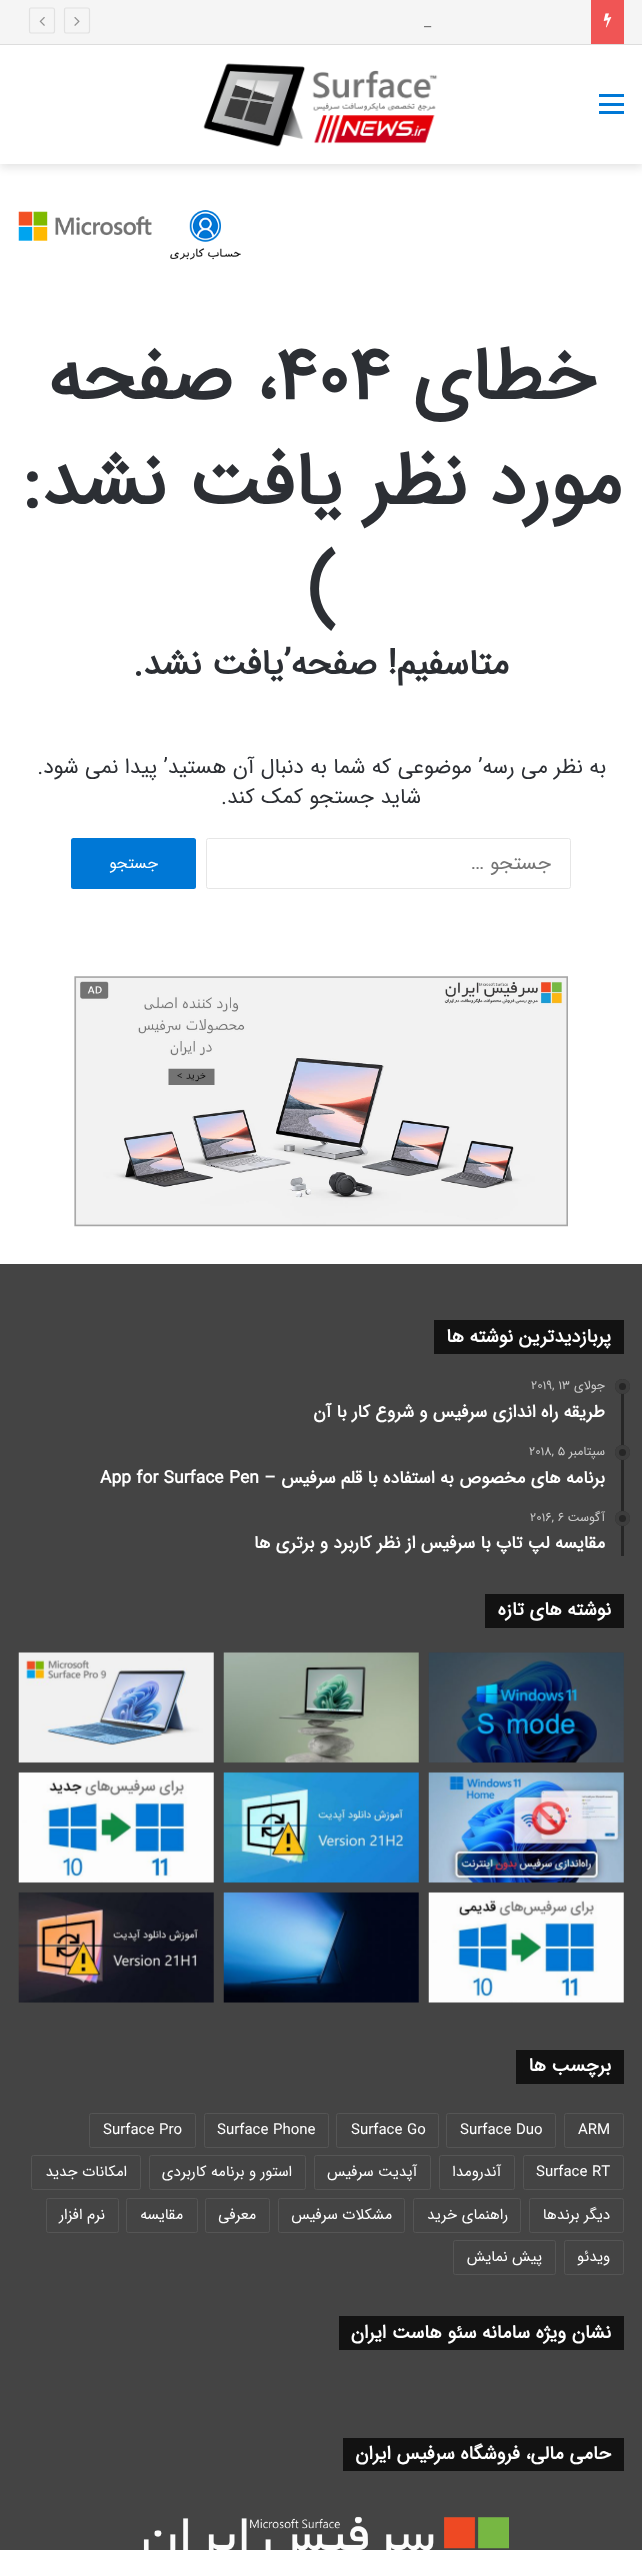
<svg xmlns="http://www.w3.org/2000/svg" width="642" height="2550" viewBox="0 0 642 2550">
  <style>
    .t1 { font: 16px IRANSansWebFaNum; fill: #757575; }
    .t2 { font: bold 75px IRANSansWebFaNum; direction: rtl; fill: #2c2f34; }
    .t3 { font: bold 75px IRANSansWebFaNum; fill: #2c2f34; }
    .t4 { font: bold 35px IRANSansWebFaNum; direction: rtl; fill: #2c2f34; }
    .t5 { font: 21.25px IRANSansWebFaNum; direction: rtl; fill: #2c2f34; }
    .t6 { font: 20px IRANSansWebFaNum; direction: rtl; fill: #757575; }
    .t7 { font: 16px IRANSansWebFaNum; direction: rtl; fill: #fff; }
    .t8 { font: bold 18.75px IRANSansWebFaNum; direction: rtl; fill: #fff; }
    .t9 { font: 12.5px IRANSansWebFaNum; direction: rtl; fill: #cbcbcb; }
    .t10 { font: 12.5px IRANSansWebFaNum; fill: #cbcbcb; }
    .t11 { font: bold 17.5px IRANSansWebFaNum; direction: rtl; fill: #fff; }
    .t12 { font: bold 17.5px IRANSansWebFaNum; fill: #fff; }
    .t13 { font: 15px IRANSansWebFaNum; fill: #fff; }
    .t14 { font: 15px IRANSansWebFaNum; direction: rtl; fill: #fff; }
  </style>
  <rect width="100%" height="100%" fill="#fff"/>
  <rect x="0" y="49" width="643" height="119" fill="#0000001a" filter="blur(4.5px)"/>
  <rect x="0" y="0" width="642" height="44" fill="#f5f5f5"/>
  <rect x="0" y="44" width="642" height="1" fill="#ddd"/>
  <rect x="591" y="0" width="33" height="44" fill="#f05555"/>
  <image x="603" y="13" width="9" height="15" href="images/1.png"/>
  <text x="424" y="26" class="t1">_</text>
  <path d="M87.5 33H66C65 33 64.5 32.5 64.5 31V10C64.5 9 65 8 66 8H87.5C88.5 8 89.5 9 89.5 10V31C89.5 32.5 88.5 33 87.5 33Z" fill="none" stroke="#e1e1e1" stroke-width="1.2"/>
  <image x="74" y="17" width="6" height="9" href="images/2.png"/>
  <path d="M52.5 33H31C30 33 29.5 32.5 29.5 31V10C29.5 9 30 8 31 8H52.5C53.5 8 54.5 9 54.5 10V31C54.5 32.5 53.5 33 52.5 33Z" fill="none" stroke="#e1e1e1" stroke-width="1.2"/>
  <image x="39" y="17" width="6" height="9" href="images/3.png"/>
  <rect x="0" y="45" width="642" height="119" fill="#fff"/>
  <rect x="599" y="103" width="25" height="3" fill="#0078d6"/>
  <rect x="599" y="94" width="25" height="3" fill="#0078d6"/>
  <rect x="599" y="111" width="25" height="3" fill="#0078d6"/>
  <image x="203" y="63" width="235" height="84" href="images/4.png"/>
  <image x="18" y="210" width="223" height="50" href="images/5.png"/>
  <text x="595" y="399" class="t2">خطای</text>
  <text x="276" y="399" class="t3">404</text>
  <text x="276" y="399" class="t2">، صفحه</text>
  <text x="622" y="504" class="t2">مورد نظر یافت نشد:</text>
  <text x="307" y="609" class="t3">(</text>
  <text x="509" y="674" class="t4">متاسفیم! صفحه’یافت نشد.</text>
  <text x="606" y="773" class="t5">به نظر می رسه’ موضوعی که شما به دنبال آن هستید’ پیدا نمی شود.</text>
  <text x="421" y="803" class="t5">شاید جستجو کمک کند.</text>
  <rect x="206.5" y="838.5" width="364" height="50" rx="2" fill="none" stroke="#e6e6e6"/>
  <text x="551" y="869" class="t6">جستجو …</text>
  <rect x="71" y="838" width="125" height="51" rx="2.5" fill="#0078d6"/>
  <text x="158" y="868" class="t7">جستجو</text>
  <image x="74" y="976" width="494" height="251" href="images/6.png"/>
  <rect x="0" y="1264" width="642" height="1286" fill="#444"/>
  <rect x="434" y="1320" width="190" height="34" fill="#121212"/>
  <text x="611" y="1342" class="t8">پربازدیدترین نوشته ها</text>
  <rect x="621" y="1379" width="3" height="177" fill="#262626"/>
  <circle cx="622.5" cy="1386.5" r="7.5" fill="#262626"/>
  <circle cx="622.5" cy="1386.5" r="5.5" fill="none" stroke="#444444cc" stroke-width="4"/>
  <text x="605" y="1389" class="t9">جولای</text>
  <text x="531" y="1389" class="t10">2019, 13</text>
  <text x="605" y="1417" class="t11">طریقه راه اندازی سرفیس و شروع کار با آن</text>
  <circle cx="622.5" cy="1452.5" r="7.5" fill="#262626"/>
  <circle cx="622.5" cy="1452.5" r="5.5" fill="none" stroke="#444444cc" stroke-width="4"/>
  <text x="605" y="1455" class="t9">سپتامبر</text>
  <text x="529" y="1455" class="t10">2018, 5</text>
  <text x="605" y="1483" class="t11">برنامه های مخصوص به استفاده با قلم سرفیس –</text>
  <text x="100" y="1483" class="t12">App for Surface Pen</text>
  <circle cx="622.5" cy="1518.5" r="7.5" fill="#262626"/>
  <circle cx="622.5" cy="1518.5" r="5.5" fill="none" stroke="#444444cc" stroke-width="4"/>
  <text x="605" y="1521" class="t9">آگوست</text>
  <text x="530" y="1521" class="t10">2016, 6</text>
  <text x="605" y="1548" class="t11">مقایسه لپ تاپ با سرفیس از نظر کاربرد و برتری ها</text>
  <rect x="485" y="1594" width="139" height="34" fill="#121212"/>
  <text x="611" y="1615" class="t8">نوشته های تازه</text>
  <image x="428" y="1652" width="196" height="111" href="images/7.png"/>
  <image x="223" y="1652" width="196" height="111" href="images/8.png"/>
  <image x="18" y="1652" width="196" height="111" href="images/9.png"/>
  <image x="428" y="1772" width="196" height="111" href="images/10.png"/>
  <image x="223" y="1772" width="196" height="111" href="images/11.png"/>
  <image x="18" y="1772" width="196" height="111" href="images/12.png"/>
  <image x="428" y="1892" width="196" height="111" href="images/13.png"/>
  <image x="223" y="1892" width="196" height="111" href="images/14.png"/>
  <image x="18" y="1892" width="196" height="111" href="images/15.png"/>
  <rect x="516" y="2050" width="108" height="34" fill="#121212"/>
  <text x="611" y="2071" class="t8">برچسب ها</text>
  <rect x="564.5" y="2113.5" width="59" height="34" rx="2" fill="none" stroke="#555"/>
  <text x="578" y="2134" class="t13">ARM</text>
  <rect x="446.5" y="2113.5" width="109" height="34" rx="2" fill="none" stroke="#555"/>
  <text x="460" y="2134" class="t13">Surface Duo</text>
  <rect x="336.5" y="2113.5" width="102" height="34" rx="2" fill="none" stroke="#555"/>
  <text x="351" y="2134" class="t13">Surface Go</text>
  <rect x="204.5" y="2113.5" width="124" height="34" rx="2" fill="none" stroke="#555"/>
  <text x="217" y="2134" class="t13">Surface Phone</text>
  <rect x="89.5" y="2113.5" width="106" height="34" rx="2" fill="none" stroke="#555"/>
  <text x="103" y="2134" class="t13">Surface Pro</text>
  <rect x="523.5" y="2155.5" width="100" height="34" rx="2" fill="none" stroke="#555"/>
  <text x="536" y="2176" class="t13">Surface RT</text>
  <rect x="439.5" y="2155.5" width="75" height="34" rx="2" fill="none" stroke="#555"/>
  <text x="501" y="2176" class="t14">آندرومدا</text>
  <rect x="314.5" y="2155.5" width="116" height="34" rx="2" fill="none" stroke="#555"/>
  <text x="417" y="2176" class="t14">آپدیت سرفیس</text>
  <rect x="149.5" y="2155.5" width="156" height="34" rx="2" fill="none" stroke="#555"/>
  <text x="292" y="2176" class="t14">استور و برنامه کاربردی</text>
  <rect x="31.5" y="2155.5" width="109" height="34" rx="2" fill="none" stroke="#555"/>
  <text x="127" y="2176" class="t14">امکانات جدید</text>
  <rect x="529.5" y="2198.5" width="94" height="34" rx="2" fill="none" stroke="#555"/>
  <text x="610" y="2219" class="t14">دیگر برندها</text>
  <rect x="413.5" y="2198.5" width="107" height="34" rx="2" fill="none" stroke="#555"/>
  <text x="508" y="2219" class="t14">راهنمای خرید</text>
  <rect x="278.5" y="2198.5" width="126" height="34" rx="2" fill="none" stroke="#555"/>
  <text x="392" y="2219" class="t14">مشکلات سرفیس</text>
  <rect x="205.5" y="2198.5" width="64" height="34" rx="2" fill="none" stroke="#555"/>
  <text x="256" y="2219" class="t14">معرفی</text>
  <rect x="126.5" y="2198.5" width="71" height="34" rx="2" fill="none" stroke="#555"/>
  <text x="183" y="2219" class="t14">مقایسه</text>
  <rect x="46.5" y="2198.5" width="72" height="34" rx="2" fill="none" stroke="#555"/>
  <text x="105" y="2219" class="t14">نرم افزار</text>
  <rect x="564.5" y="2240.5" width="59" height="34" rx="2" fill="none" stroke="#555"/>
  <text x="610" y="2261" class="t14">ویدئو</text>
  <rect x="453.5" y="2240.5" width="102" height="34" rx="2" fill="none" stroke="#555"/>
  <text x="542" y="2261" class="t14">پیش نمایش</text>
  <rect x="339" y="2316" width="285" height="34" fill="#121212"/>
  <text x="611" y="2338" class="t8">نشان ویژه سامانه سئو هاست ایران</text>
  <rect x="343" y="2438" width="281" height="33" fill="#121212"/>
  <text x="611" y="2459" class="t8">حامی مالی، فروشگاه سرفیس ایران</text>
  <image x="143" y="2516" width="366" height="34" href="images/16.png"/>
</svg>
